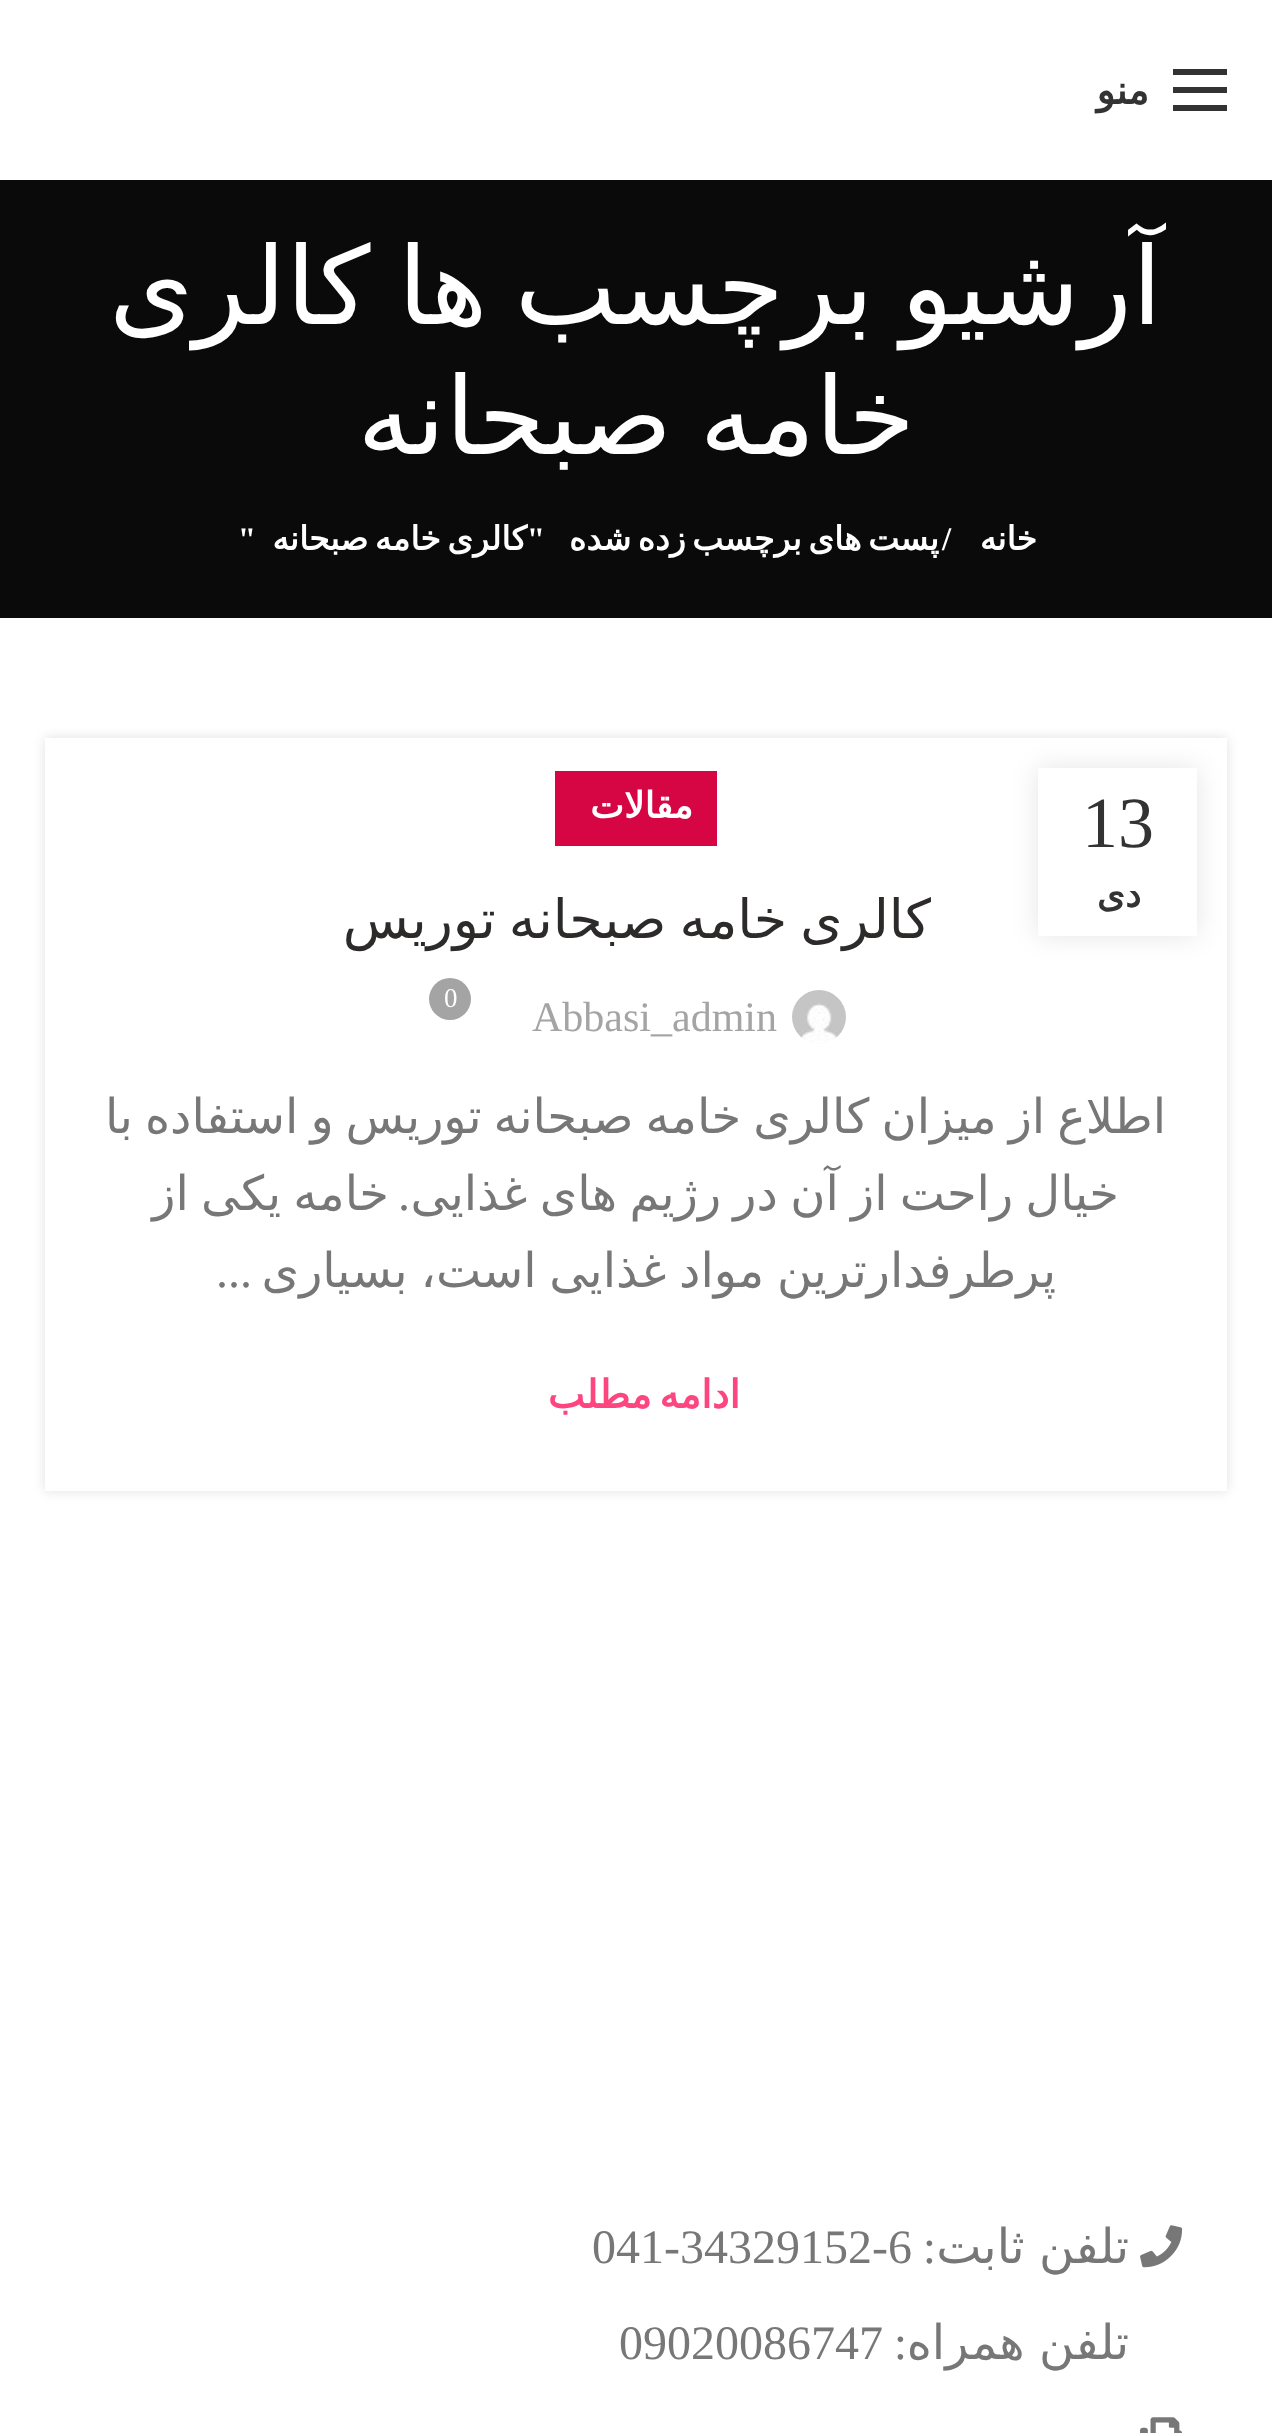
<svg xmlns="http://www.w3.org/2000/svg" width="1272" height="2433" viewBox="0 0 1272 2433">
  <style>
    .t1 { font: bold 39px DejaVu Sans; direction: rtl; fill: #333; }
    .t2 { font: 108px DejaVu Sans; direction: rtl; fill: #fff; }
    .t3 { font: bold 33px DejaVu Sans; letter-spacing: 0.9px; direction: rtl; fill: #fff; }
    .t4 { font: bold 33px Liberation Serif; letter-spacing: 0.9px; fill: #fff; }
    .t5 { font: bold 33px Liberation Serif; letter-spacing: 0.9px; direction: rtl; fill: #fff; }
    .t6 { font: bold 36px DejaVu Sans; letter-spacing: 0.9px; direction: rtl; fill: #fff; }
    .t7 { font: 54px DejaVu Sans; direction: rtl; fill: #2d2a2a; }
    .t8 { font: 27px Liberation Serif; fill: #fff; }
    .t9 { font: 42px Liberation Serif; fill: #a4a4a4; }
    .t10 { font: 48px DejaVu Sans; direction: rtl; fill: #777; }
    .t11 { font: 48px Liberation Serif; direction: rtl; fill: #777; }
    .t12 { font: bold 39px DejaVu Sans; letter-spacing: 0.9px; direction: rtl; fill: #fd4680; }
    .t13 { font: 72px Liberation Serif; fill: #333; }
    .t14 { font: bold 36px DejaVu Sans; letter-spacing: 0.9px; direction: rtl; fill: #333; }
    .t15 { font: 48px Liberation Serif; fill: #777; }
  </style>
  <defs>
    <clipPath id="clip1"><path d="M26 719H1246V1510H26ZM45 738H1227V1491H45Z" clip-rule="evenodd"/></clipPath>
    <clipPath id="clip2"><path d="M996 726H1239V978H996ZM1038 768H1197V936H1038Z" clip-rule="evenodd"/></clipPath>
  </defs>
  <rect width="100%" height="100%" fill="#fff"/>
  <rect x="1173" y="87" width="54" height="6" fill="#333"/>
  <rect x="1173" y="69" width="54" height="6" fill="#333"/>
  <rect x="1173" y="105" width="54" height="6" fill="#333"/>
  <text x="1149" y="104" class="t1">منو</text>
  <rect x="0" y="180" width="1272" height="438" fill="#0a0a0a"/>
  <text x="1162" y="324" word-spacing="-7" class="t2">آرشیو برچسب ها کالری</text>
  <text x="915" y="454" word-spacing="-7" class="t2">خامه صبحانه</text>
  <text x="1037" y="550" class="t3">خانه</text>
  <text x="942" y="550" class="t4">/</text>
  <text x="939" y="550" word-spacing="-4" class="t3">پست های برچسب زده شده</text>
  <text x="527" y="550" word-spacing="-4" class="t3">کالری خامه صبحانه</text>
  <text x="546" y="550" class="t5">"</text>
  <text x="257" y="550" class="t5">"</text>
  <g clip-path="url(#clip1)">
    <rect x="45" y="738" width="1182" height="753" fill="#0000001f" filter="blur(6px)"/>
  </g>
  <rect x="555" y="771" width="162" height="75" fill="#d60644"/>
  <text x="693" y="818" class="t6">مقالات</text>
  <text x="931" y="938" word-spacing="-4" class="t7">کالری خامه صبحانه توریس</text>
  <circle cx="450" cy="999" r="21" fill="#a4a4a4"/>
  <text x="444" y="1007" class="t8">0</text>
  <image x="792" y="990" width="54" height="54" href="images/1.png"/>
  <text x="532" y="1031" class="t9">Abbasi_admin</text>
  <text x="1166" y="1133" word-spacing="-3.25" class="t10">اطلاع از میزان کالری خامه صبحانه توریس و استفاده با</text>
  <text x="1119" y="1210" word-spacing="-3" class="t10">خیال راحت از آن در رژیم های غذایی</text>
  <text x="410" y="1210" class="t11">.</text>
  <text x="389" y="1210" word-spacing="-3" class="t10">خامه یکی از</text>
  <text x="1056" y="1287" word-spacing="-2.5" class="t10">پرطرفدارترین مواد غذایی است، بسیاری</text>
  <text x="252" y="1287" class="t11">...</text>
  <text x="740" y="1408" word-spacing="-5" class="t12">ادامه مطلب</text>
  <g clip-path="url(#clip2)">
    <rect x="1038" y="768" width="159" height="168" fill="#0000001a" filter="blur(13.5px)"/>
  </g>
  <text x="1082" y="847" class="t13">13</text>
  <text x="1141" y="907" class="t14">دی</text>
  <image x="1140" y="2225" width="43" height="43" href="images/2.png"/>
  <text x="1129" y="2263" word-spacing="-1" class="t10">تلفن ثابت</text>
  <text x="936" y="2263" class="t11">:</text>
  <text x="592" y="2263" class="t15">041-34329152-6</text>
  <text x="1129" y="2359" word-spacing="-1" class="t10">تلفن همراه</text>
  <text x="907" y="2359" class="t11">:</text>
  <text x="619" y="2359" class="t15">09020086747</text>
  <image x="1140" y="2417" width="42" height="16" href="images/3.png"/>
</svg>
